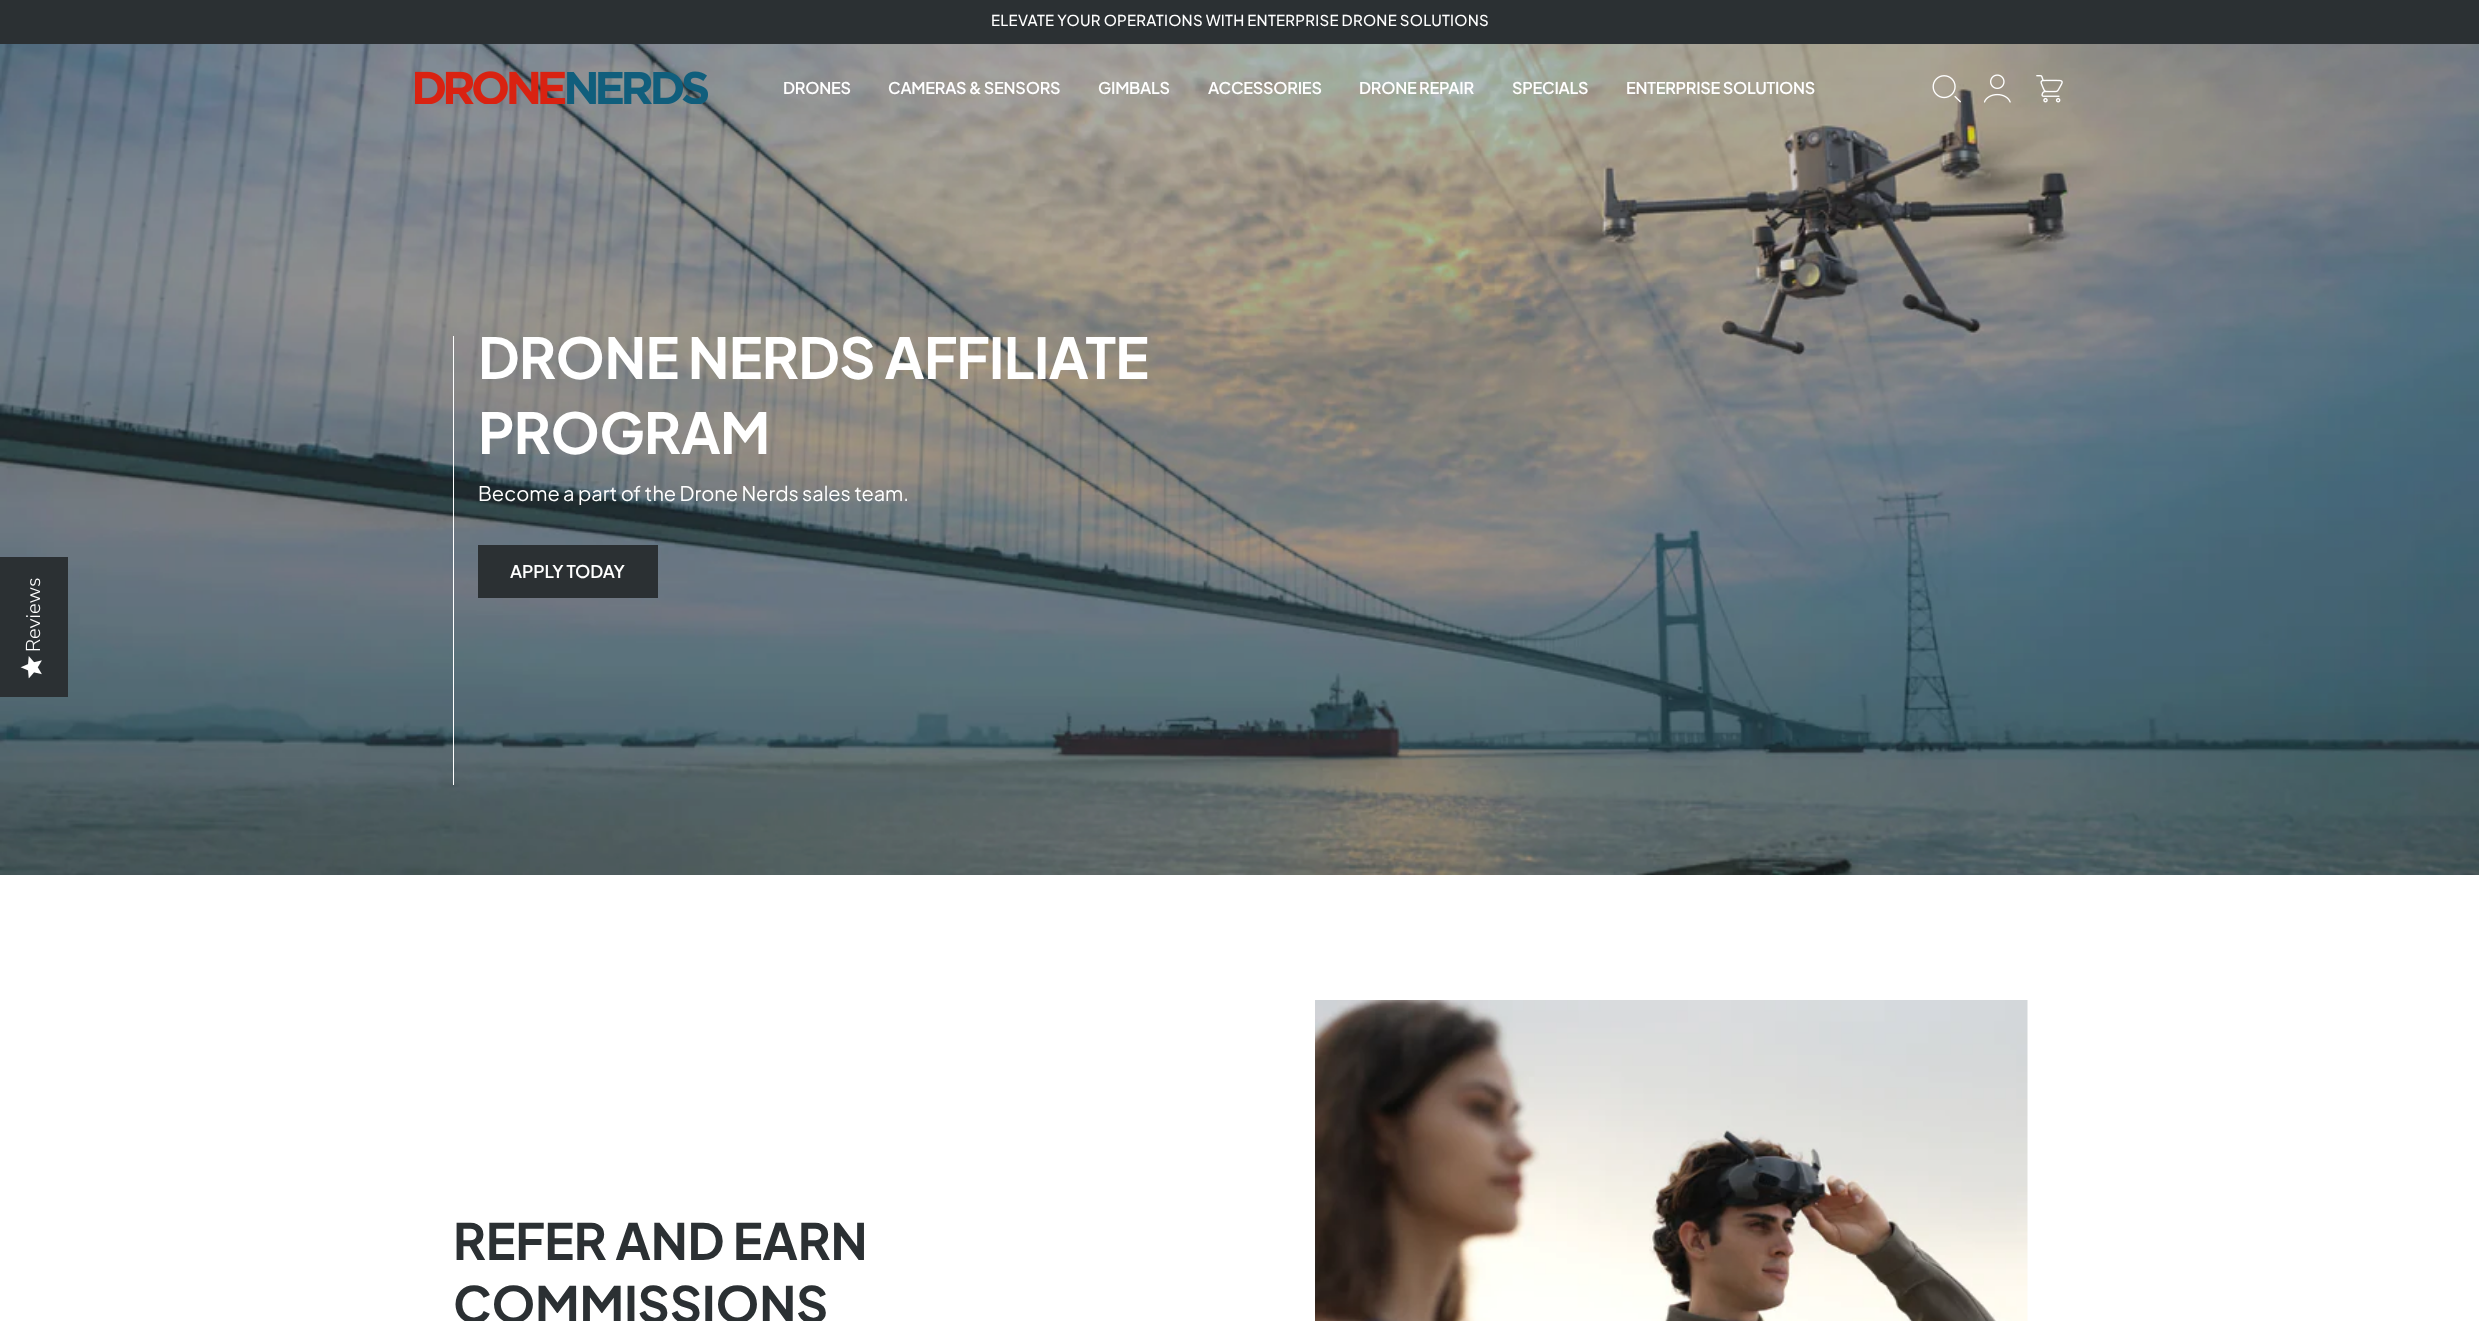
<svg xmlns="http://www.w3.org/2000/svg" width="2479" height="1321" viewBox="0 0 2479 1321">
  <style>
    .t1 { font: 500 15px Plus Jakarta Sans; letter-spacing: 0.25px; fill: #fff; }
    .t2 { font: 600 16.25px Plus Jakarta Sans; letter-spacing: -0.25px; fill: #fff; }
    .t3 { font: 200 20px Nunito Sans; fill: #fff; }
    .t4 { font: bold 56.25px Plus Jakarta Sans; letter-spacing: -0.6px; fill: #fff; }
    .t5 { font: 20px Plus Jakarta Sans; fill: #fff; }
    .t6 { font: 600 17.5px Plus Jakarta Sans; letter-spacing: -0.1px; fill: #fff; }
    .t7 { font: bold 50px Plus Jakarta Sans; letter-spacing: -0.25px; fill: #2b3033; }
  </style>
  <rect width="100%" height="100%" fill="#fff"/>
  <rect x="0" y="0" width="2479" height="44" fill="#2b3033"/>
  <text x="991" y="26" class="t1">ELEVATE YOUR OPERATIONS WITH ENTERPRISE DRONE SOLUTIONS</text>
  <image x="0" y="44" width="2479" height="831" href="images/6.png"/>
  <image x="415" y="71" width="293" height="33" href="images/1.png"/>
  <text x="783" y="94" class="t2">DRONES</text>
  <text x="888" y="94" class="t2">CAMERAS &amp; SENSORS</text>
  <text x="1098" y="94" class="t2">GIMBALS</text>
  <text x="1208" y="94" class="t2">ACCESSORIES</text>
  <text x="1359" y="94" class="t2">DRONE REPAIR</text>
  <text x="1512" y="94" class="t2">SPECIALS</text>
  <text x="1626" y="94" class="t2">ENTERPRISE SOLUTIONS</text>
  <image x="1932" y="75" width="29" height="28" href="images/2.png"/>
  <image x="1984" y="74" width="27" height="29" href="images/3.png"/>
  <image x="2036" y="75" width="27" height="28" href="images/4.png"/>
  <rect x="0" y="557" width="68" height="140" fill="#2b3033"/>
  <text x="40" y="652" transform="rotate(-90 40 652)" class="t3">Reviews</text>
  <image x="20" y="656" width="22" height="23" href="images/5.png"/>
  <rect x="453" y="336" width="1" height="449" fill="#fff"/>
  <text x="478" y="379" class="t4">DRONE NERDS AFFILIATE</text>
  <text x="478" y="454" class="t4">PROGRAM</text>
  <text x="478" y="501" class="t5">Become a part of the Drone Nerds sales team.</text>
  <rect x="478" y="545" width="180" height="53" fill="#2b3033"/>
  <text x="510" y="578" class="t6">APPLY TODAY</text>
  <text x="453" y="1260" class="t7">REFER AND EARN</text>
  <text x="453" y="1323" class="t7">COMMISSIONS</text>
  <image x="1315" y="1000" width="713" height="321" href="images/7.png"/>
</svg>
